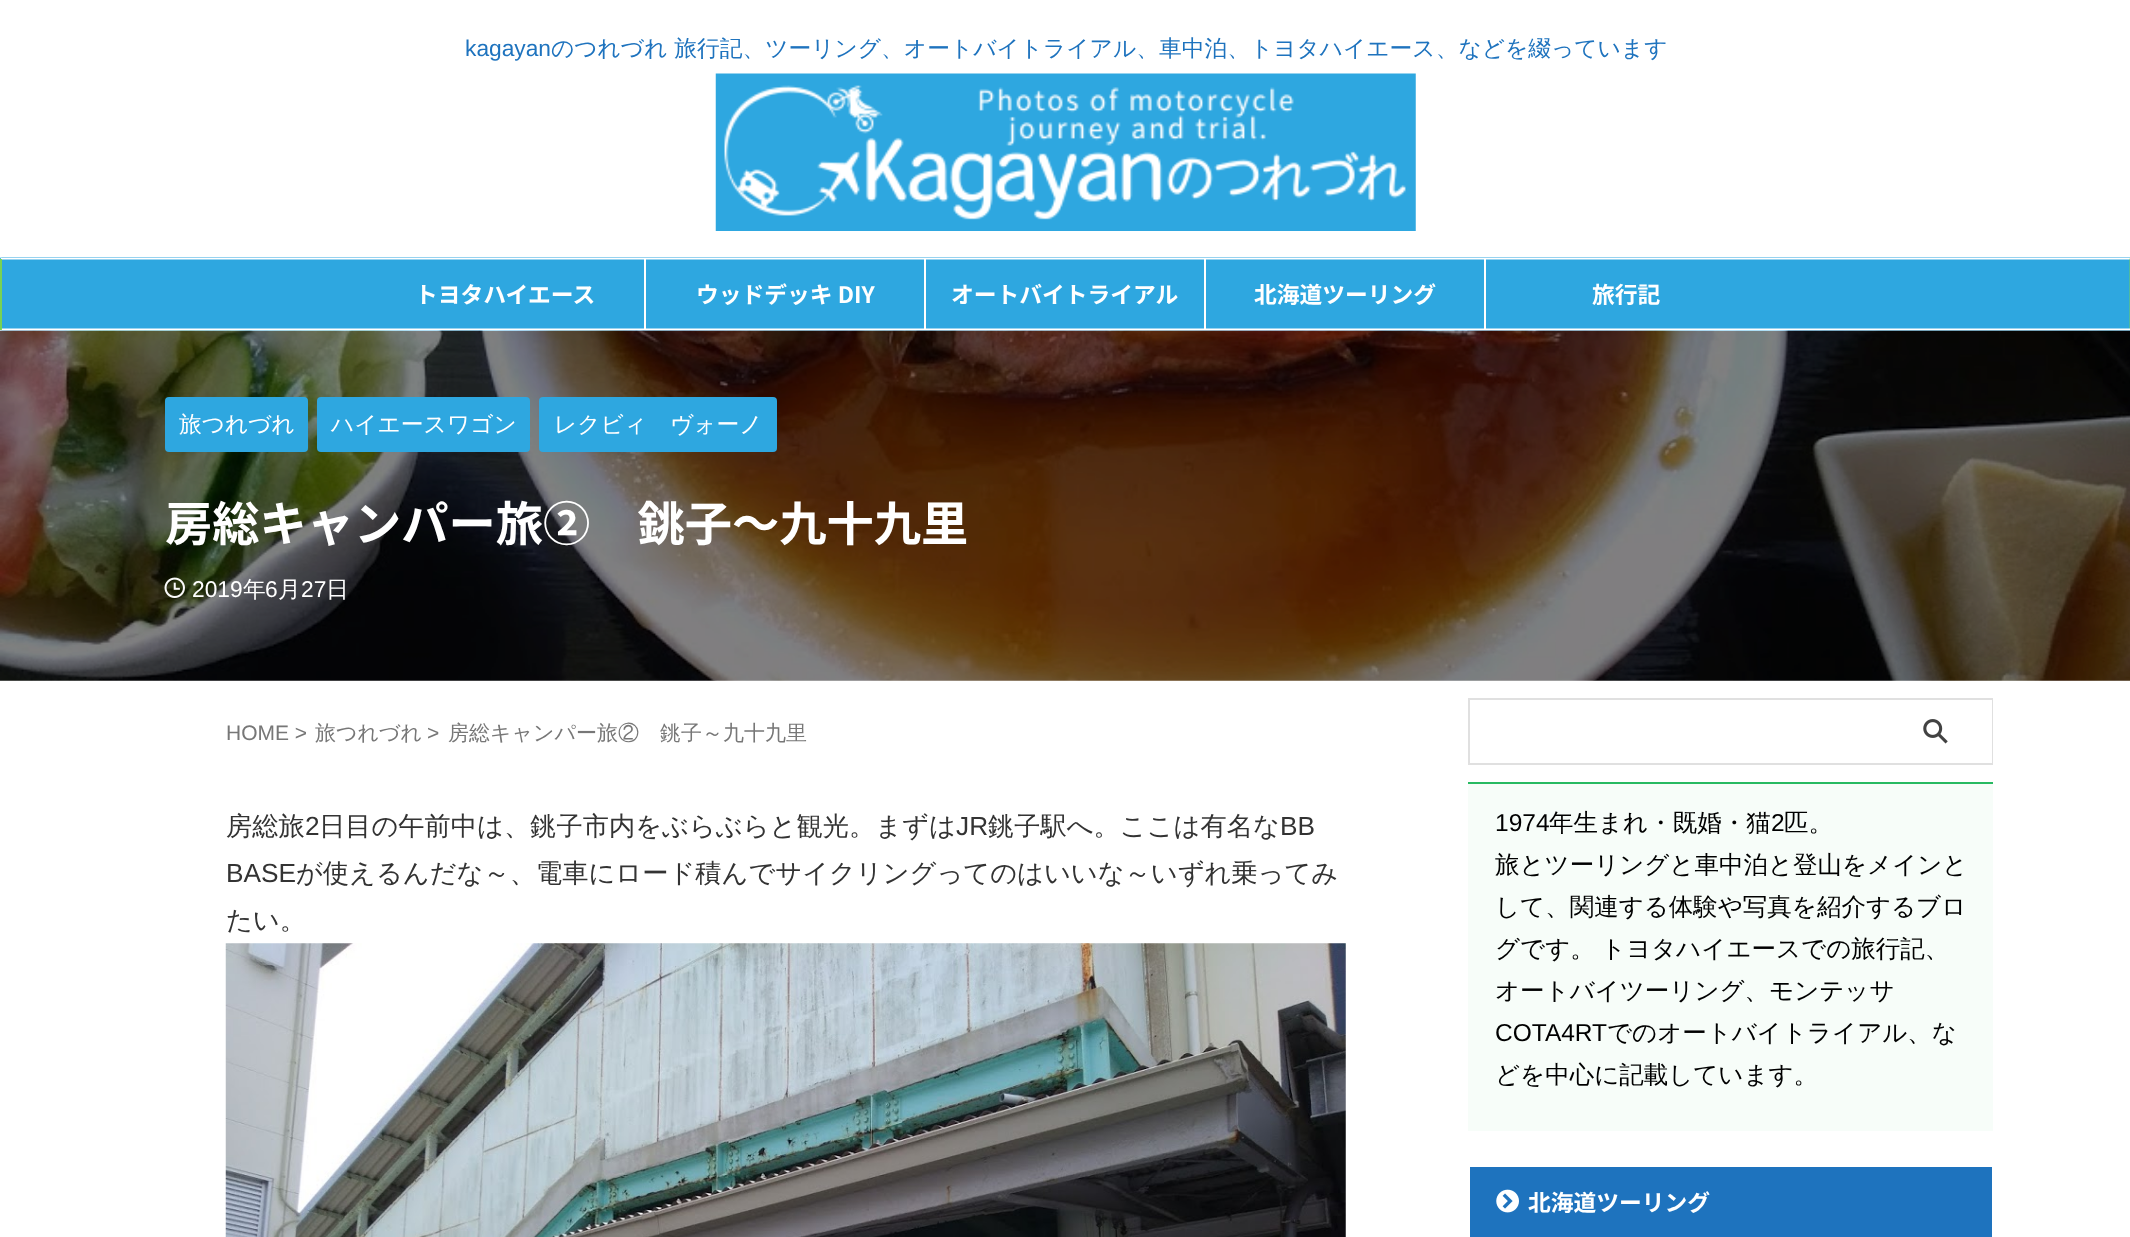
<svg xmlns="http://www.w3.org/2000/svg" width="2130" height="1237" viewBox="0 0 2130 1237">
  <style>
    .t1 { font: 22.75px Liberation Sans; fill: #1e73be; }
    .t2 { font: 500 22.75px WenQuanYi Zen Hei; fill: #1e73be; }
    .t3 { font: bold 22.75px Noto Sans JP; fill: #fff; }
    .t4 { font: 500 22.75px WenQuanYi Zen Hei; fill: #fff; }
    .t5 { font: bold 47.25px Noto Sans JP; fill: #fff; }
    .t6 { font: 22.75px Liberation Sans; fill: #fff; }
    .t7 { font: 21px Liberation Sans; fill: #777; }
    .t8 { font: 500 21px WenQuanYi Zen Hei; fill: #777; }
    .t9 { font: 500 26.25px WenQuanYi Zen Hei; fill: #333; }
    .t10 { font: 26.25px Liberation Sans; fill: #333; }
    .t11 { font: 24.5px Liberation Sans; fill: #000; }
    .t12 { font: 500 24.5px WenQuanYi Zen Hei; fill: #000; }
  </style>
  <rect width="100%" height="100%" fill="#fff"/>
  <text x="465" y="56" class="t1">kagayan</text>
  <text x="551" y="56" class="t2">のつれづれ 旅行記、ツーリング、オートバイトライアル、車中泊、トヨタハイエース、などを綴っています</text>
  <image x="715" y="73" width="701" height="158" href="images/1.png"/>
  <rect x="0" y="257" width="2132" height="74" rx="2" fill="#2ea7e0"/>
  <path d="M1 258.5H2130.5" fill="none" stroke="#fff" stroke-width="1.8"/>
  <path d="M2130.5 258.5V329.5" fill="none" stroke="#81d742" stroke-width="1.8"/>
  <path d="M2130.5 329.5H1" fill="none" stroke="#fff" stroke-width="1.8"/>
  <rect x="0" y="259" width="2" height="71" fill="#81d742e6"/>
  <rect x="644" y="259" width="2" height="70" fill="#fff"/>
  <text x="415" y="303" class="t3">トヨタハイエース</text>
  <rect x="924" y="259" width="2" height="70" fill="#fff"/>
  <text x="696" y="303" class="t3">ウッドデッキ DIY</text>
  <rect x="1204" y="259" width="2" height="70" fill="#fff"/>
  <text x="951" y="303" class="t3">オートバイトライアル</text>
  <rect x="1484" y="259" width="2" height="70" fill="#fff"/>
  <text x="1254" y="303" class="t3">北海道ツーリング</text>
  <text x="1592" y="303" class="t3">旅行記</text>
  <image x="0" y="330" width="2130" height="351" href="images/2.png"/>
  <rect x="165" y="397" width="143" height="55" rx="4" fill="#2ea7e0"/>
  <text x="179" y="432" class="t4">旅つれづれ</text>
  <rect x="317" y="397" width="213" height="55" rx="4" fill="#2ea7e0"/>
  <text x="331" y="432" class="t4">ハイエースワゴン</text>
  <rect x="539" y="397" width="238" height="55" rx="4" fill="#2ea7e0"/>
  <text x="554" y="432" class="t4">レクビィ　ヴォーノ</text>
  <text x="165" y="541" class="t5">房総キャンパー旅②　銚子～九十九里</text>
  <image x="164" y="577" width="21" height="21" href="images/3.png"/>
  <text x="192" y="597" class="t6">2019</text>
  <text x="243" y="597" class="t4">年</text>
  <text x="265" y="597" class="t6">6</text>
  <text x="278" y="597" class="t4">月</text>
  <text x="301" y="597" class="t6">27</text>
  <text x="326" y="597" class="t4">日</text>
  <text x="226" y="740" class="t7">HOME &gt;</text>
  <text x="315" y="740" class="t8">旅つれづれ</text>
  <text x="427" y="740" class="t7">&gt;</text>
  <text x="448" y="740" class="t8">房総キャンパー旅②　銚子～九十九里</text>
  <text x="226" y="835" class="t9">房総旅</text>
  <text x="305" y="835" class="t10">2</text>
  <text x="319" y="835" class="t9">日目の午前中は、銚子市内をぶらぶらと観光。まずは</text>
  <text x="956" y="835" class="t10">JR</text>
  <text x="988" y="835" class="t9">銚子駅へ。ここは有名な</text>
  <text x="1280" y="835" class="t10">BB</text>
  <text x="226" y="882" class="t10">BASE</text>
  <text x="296" y="882" class="t9">が使えるんだな～、電車にロード積んでサイクリングってのはいいな～いずれ乗ってみ</text>
  <text x="226" y="929" class="t9">たい。</text>
  <image x="225" y="943" width="1121" height="294" href="images/4.png"/>
  <rect x="1469" y="699" width="523" height="65" fill="none" stroke="#e0e0e0" stroke-width="2"/>
  <rect x="1991" y="700" width="1" height="63" fill="#fff"/>
  <image x="1923" y="719" width="25" height="25" href="images/5.png"/>
  <rect x="1468" y="784" width="525" height="347" fill="#f7fdf9"/>
  <rect x="1468" y="782" width="525" height="2" fill="#28ba62"/>
  <text x="1495" y="831" class="t11">1974</text>
  <text x="1549" y="831" class="t12">年生まれ・既婚・猫</text>
  <text x="1771" y="831" class="t11">2</text>
  <text x="1784" y="831" class="t12">匹。</text>
  <text x="1495" y="873" class="t12">旅とツーリングと車中泊と登山をメインと</text>
  <text x="1495" y="915" class="t12">して、関連する体験や写真を紹介するブロ</text>
  <text x="1495" y="957" word-spacing="-1" class="t12">グです。 トヨタハイエースでの旅行記、</text>
  <text x="1495" y="999" class="t12">オートバイツーリング、モンテッサ</text>
  <text x="1495" y="1041" class="t11">COTA4RT</text>
  <text x="1607" y="1041" class="t12">でのオートバイトライアル、な</text>
  <text x="1495" y="1083" class="t12">どを中心に記載しています。</text>
  <rect x="1470" y="1167" width="522" height="70" fill="#1e73be"/>
  <image x="1496" y="1189" width="23" height="24" href="images/6.png"/>
  <text x="1528" y="1211" class="t3">北海道ツーリング</text>
</svg>
